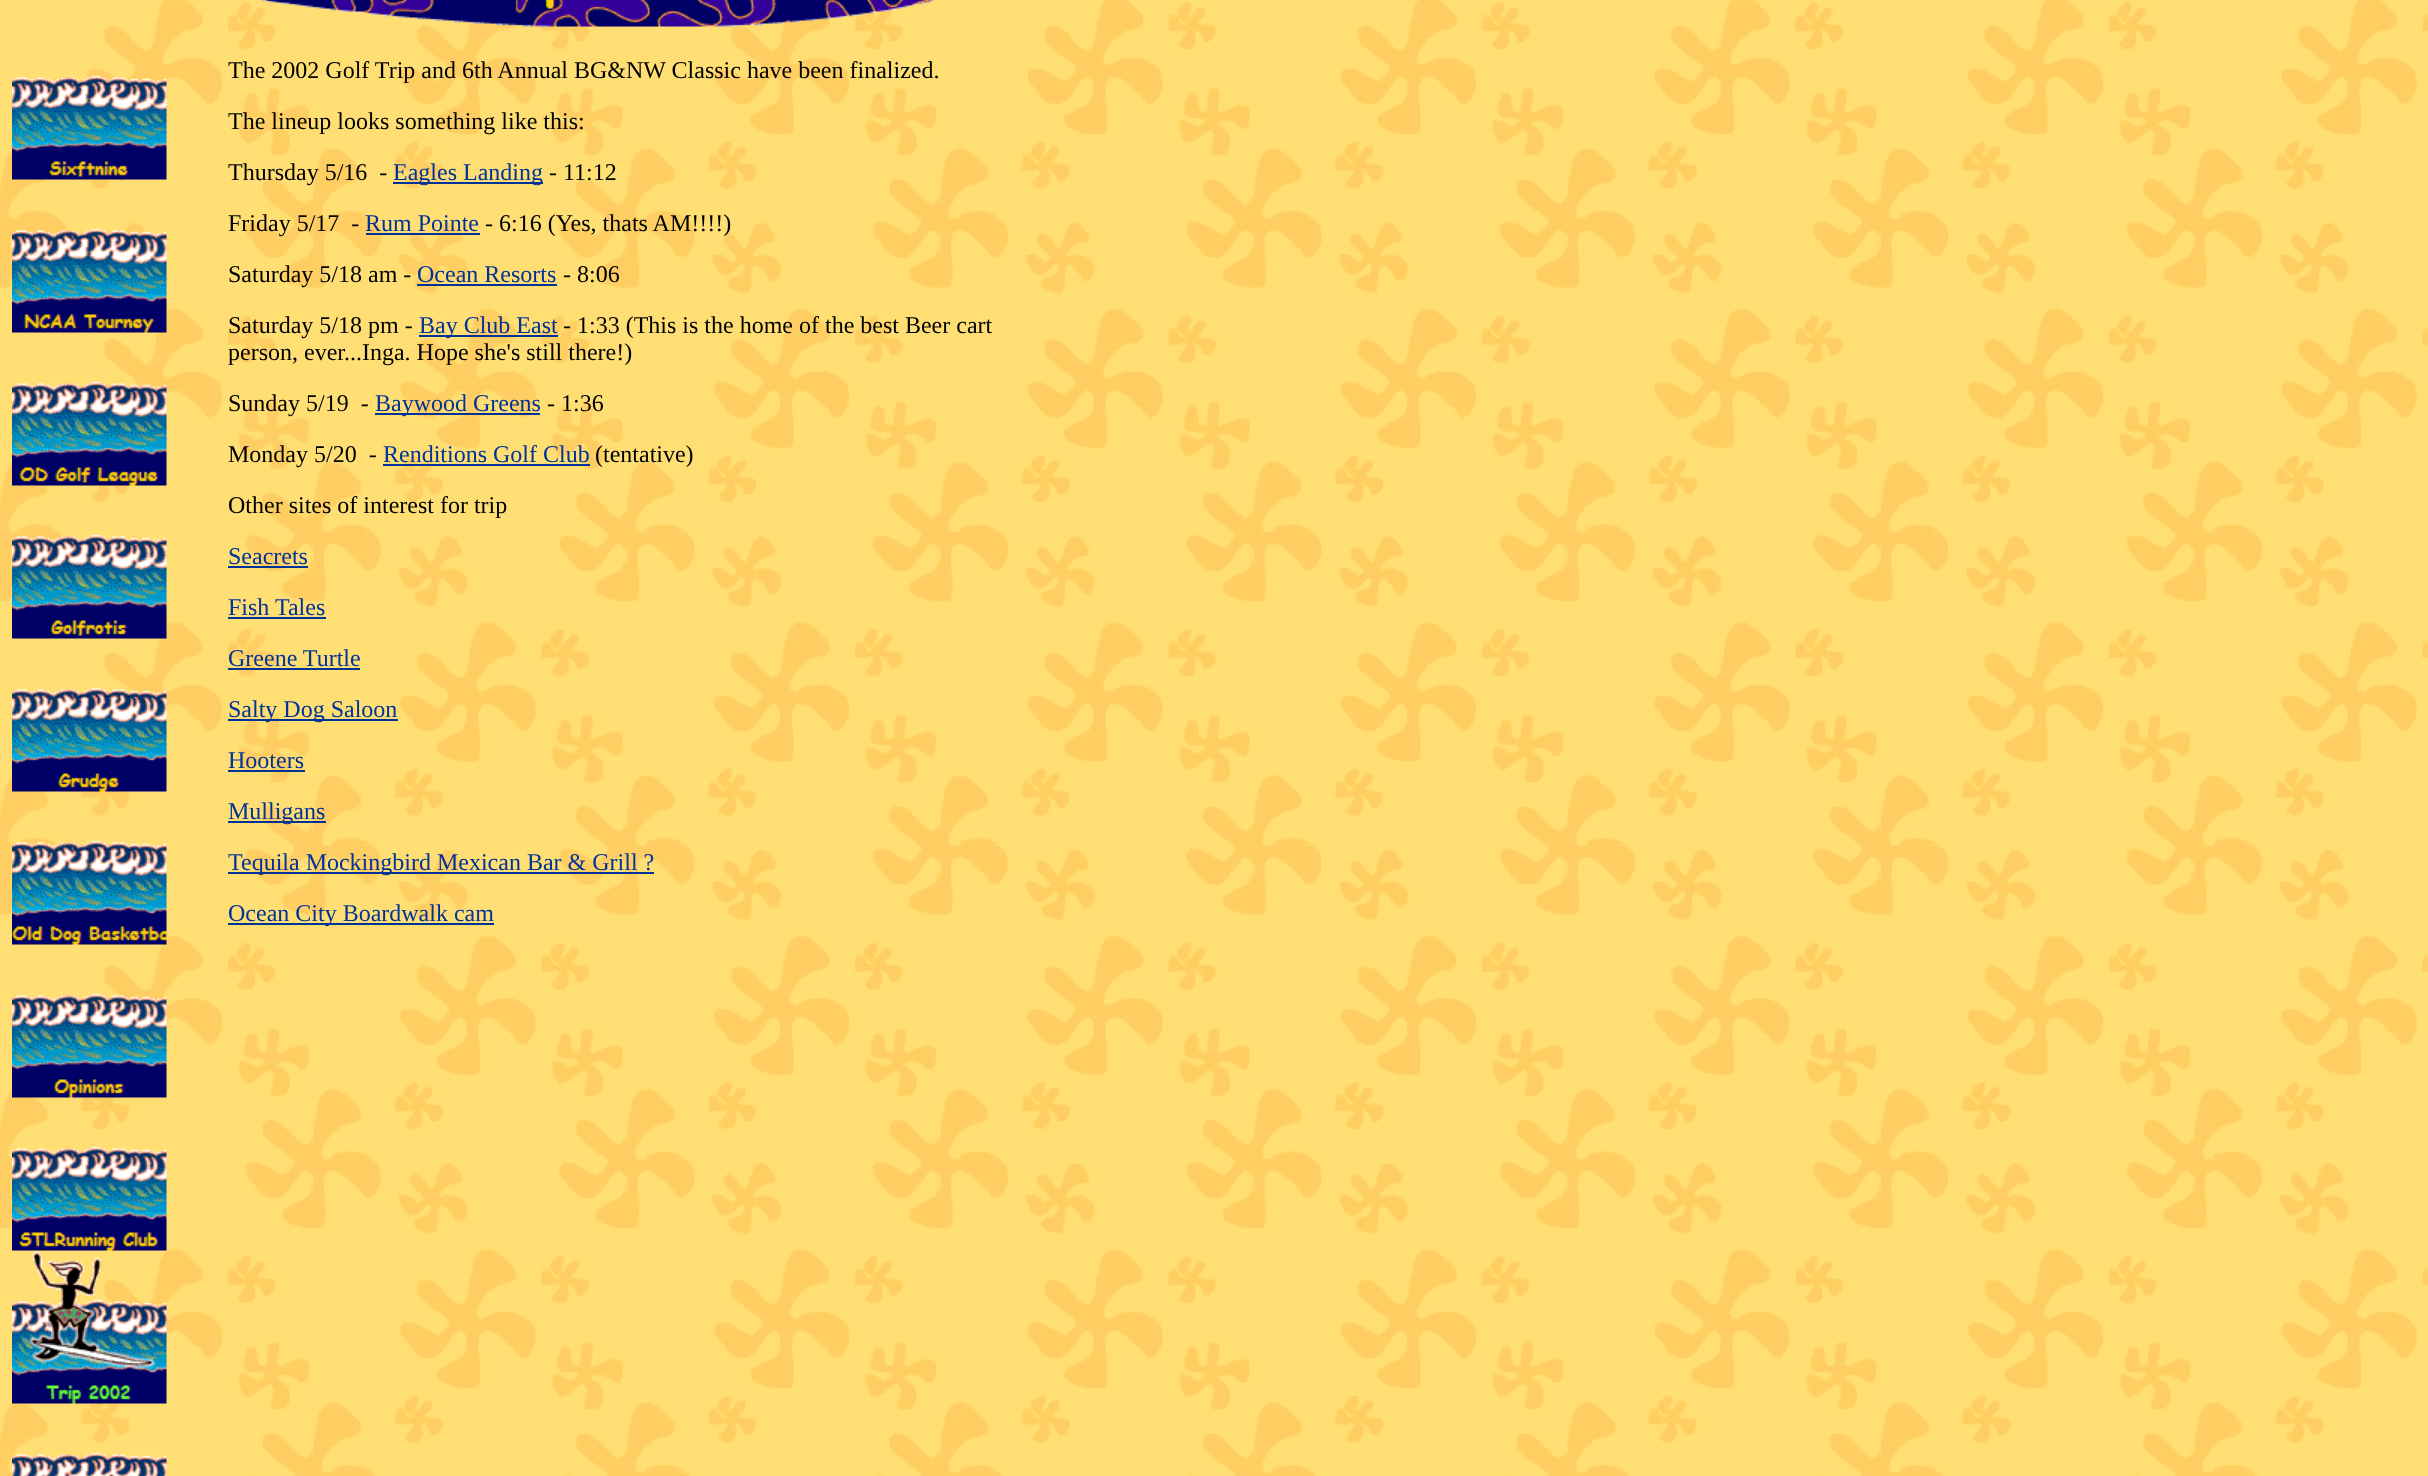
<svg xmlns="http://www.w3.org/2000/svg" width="2428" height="1476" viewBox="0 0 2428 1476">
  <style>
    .t1 { font: 24px Liberation Serif; fill: #000; }
    .t2 { font: 24px Liberation Serif; fill: #039; }
  </style>
  <rect width="100%" height="100%" fill="#fff"/>
  <image x="0" y="0" width="2428" height="1476" href="images/1.png"/>
  <image x="12" y="75" width="155" height="105" href="images/2.png"/>
  <image x="12" y="228" width="155" height="105" href="images/3.png"/>
  <image x="12" y="381" width="155" height="105" href="images/4.png"/>
  <image x="12" y="534" width="155" height="105" href="images/5.png"/>
  <image x="12" y="687" width="155" height="105" href="images/6.png"/>
  <image x="12" y="840" width="155" height="105" href="images/7.png"/>
  <image x="12" y="993" width="155" height="105" href="images/8.png"/>
  <image x="12" y="1146" width="155" height="105" href="images/9.png"/>
  <image x="12" y="1251" width="155" height="153" href="images/10.png"/>
  <image x="12" y="1452" width="155" height="24" href="images/11.png"/>
  <image x="260" y="0" width="677" height="27" href="images/12.png"/>
  <text x="228" y="78" class="t1">The 2002 Golf Trip and 6th Annual BG&amp;NW Classic have been finalized.</text>
  <text x="228" y="129" class="t1">The lineup looks something like this:</text>
  <text x="228" y="180" class="t1" xml:space="preserve">Thursday 5/16  -</text>
  <rect x="393" y="182" width="150" height="2" fill="#039"/>
  <text x="393" y="180" class="t2">Eagles Landing</text>
  <text x="549" y="180" class="t1">- 11:12</text>
  <text x="228" y="231" class="t1" xml:space="preserve">Friday 5/17  -</text>
  <text x="365" y="231" class="t2">Rum Pointe</text>
  <rect x="366" y="233" width="114" height="2" fill="#039"/>
  <text x="485" y="231" class="t1">- 6:16 (Yes, thats AM!!!!)</text>
  <text x="228" y="282" class="t1">Saturday 5/18 am -</text>
  <text x="417" y="282" class="t2">Ocean Resorts</text>
  <rect x="417" y="284" width="140" height="2" fill="#039"/>
  <text x="563" y="282" class="t1">- 8:06</text>
  <text x="228" y="333" class="t1">Saturday 5/18 pm -</text>
  <rect x="419" y="335" width="139" height="2" fill="#039"/>
  <text x="419" y="333" class="t2">Bay Club East</text>
  <text x="563" y="333" class="t1">- 1:33 (This is the home of the best Beer cart</text>
  <text x="228" y="360" class="t1">person, ever...Inga. Hope she's still there!)</text>
  <text x="228" y="411" class="t1" xml:space="preserve">Sunday 5/19  -</text>
  <rect x="375" y="413" width="165" height="2" fill="#039"/>
  <text x="375" y="411" class="t2">Baywood Greens</text>
  <text x="547" y="411" class="t1">- 1:36</text>
  <text x="228" y="462" class="t1" xml:space="preserve">Monday 5/20  -</text>
  <text x="383" y="462" class="t2">Renditions Golf Club</text>
  <rect x="383" y="464" width="207" height="2" fill="#039"/>
  <text x="595" y="462" class="t1">(tentative)</text>
  <text x="228" y="513" class="t1">Other sites of interest for trip</text>
  <text x="228" y="564" class="t2">Seacrets</text>
  <rect x="228" y="566" width="80" height="2" fill="#039"/>
  <text x="228" y="615" class="t2">Fish Tales</text>
  <rect x="228" y="617" width="98" height="2" fill="#039"/>
  <text x="228" y="666" class="t2">Greene Turtle</text>
  <rect x="228" y="668" width="132" height="2" fill="#039"/>
  <rect x="228" y="719" width="170" height="2" fill="#039"/>
  <text x="228" y="717" class="t2">Salty Dog Saloon</text>
  <text x="228" y="768" class="t2">Hooters</text>
  <rect x="228" y="770" width="77" height="2" fill="#039"/>
  <rect x="228" y="821" width="98" height="2" fill="#039"/>
  <text x="228" y="819" class="t2">Mulligans</text>
  <rect x="228" y="872" width="426" height="2" fill="#039"/>
  <text x="228" y="870" class="t2">Tequila Mockingbird Mexican Bar &amp; Grill ?</text>
  <rect x="228" y="923" width="266" height="2" fill="#039"/>
  <text x="228" y="921" class="t2">Ocean City Boardwalk cam</text>
</svg>
